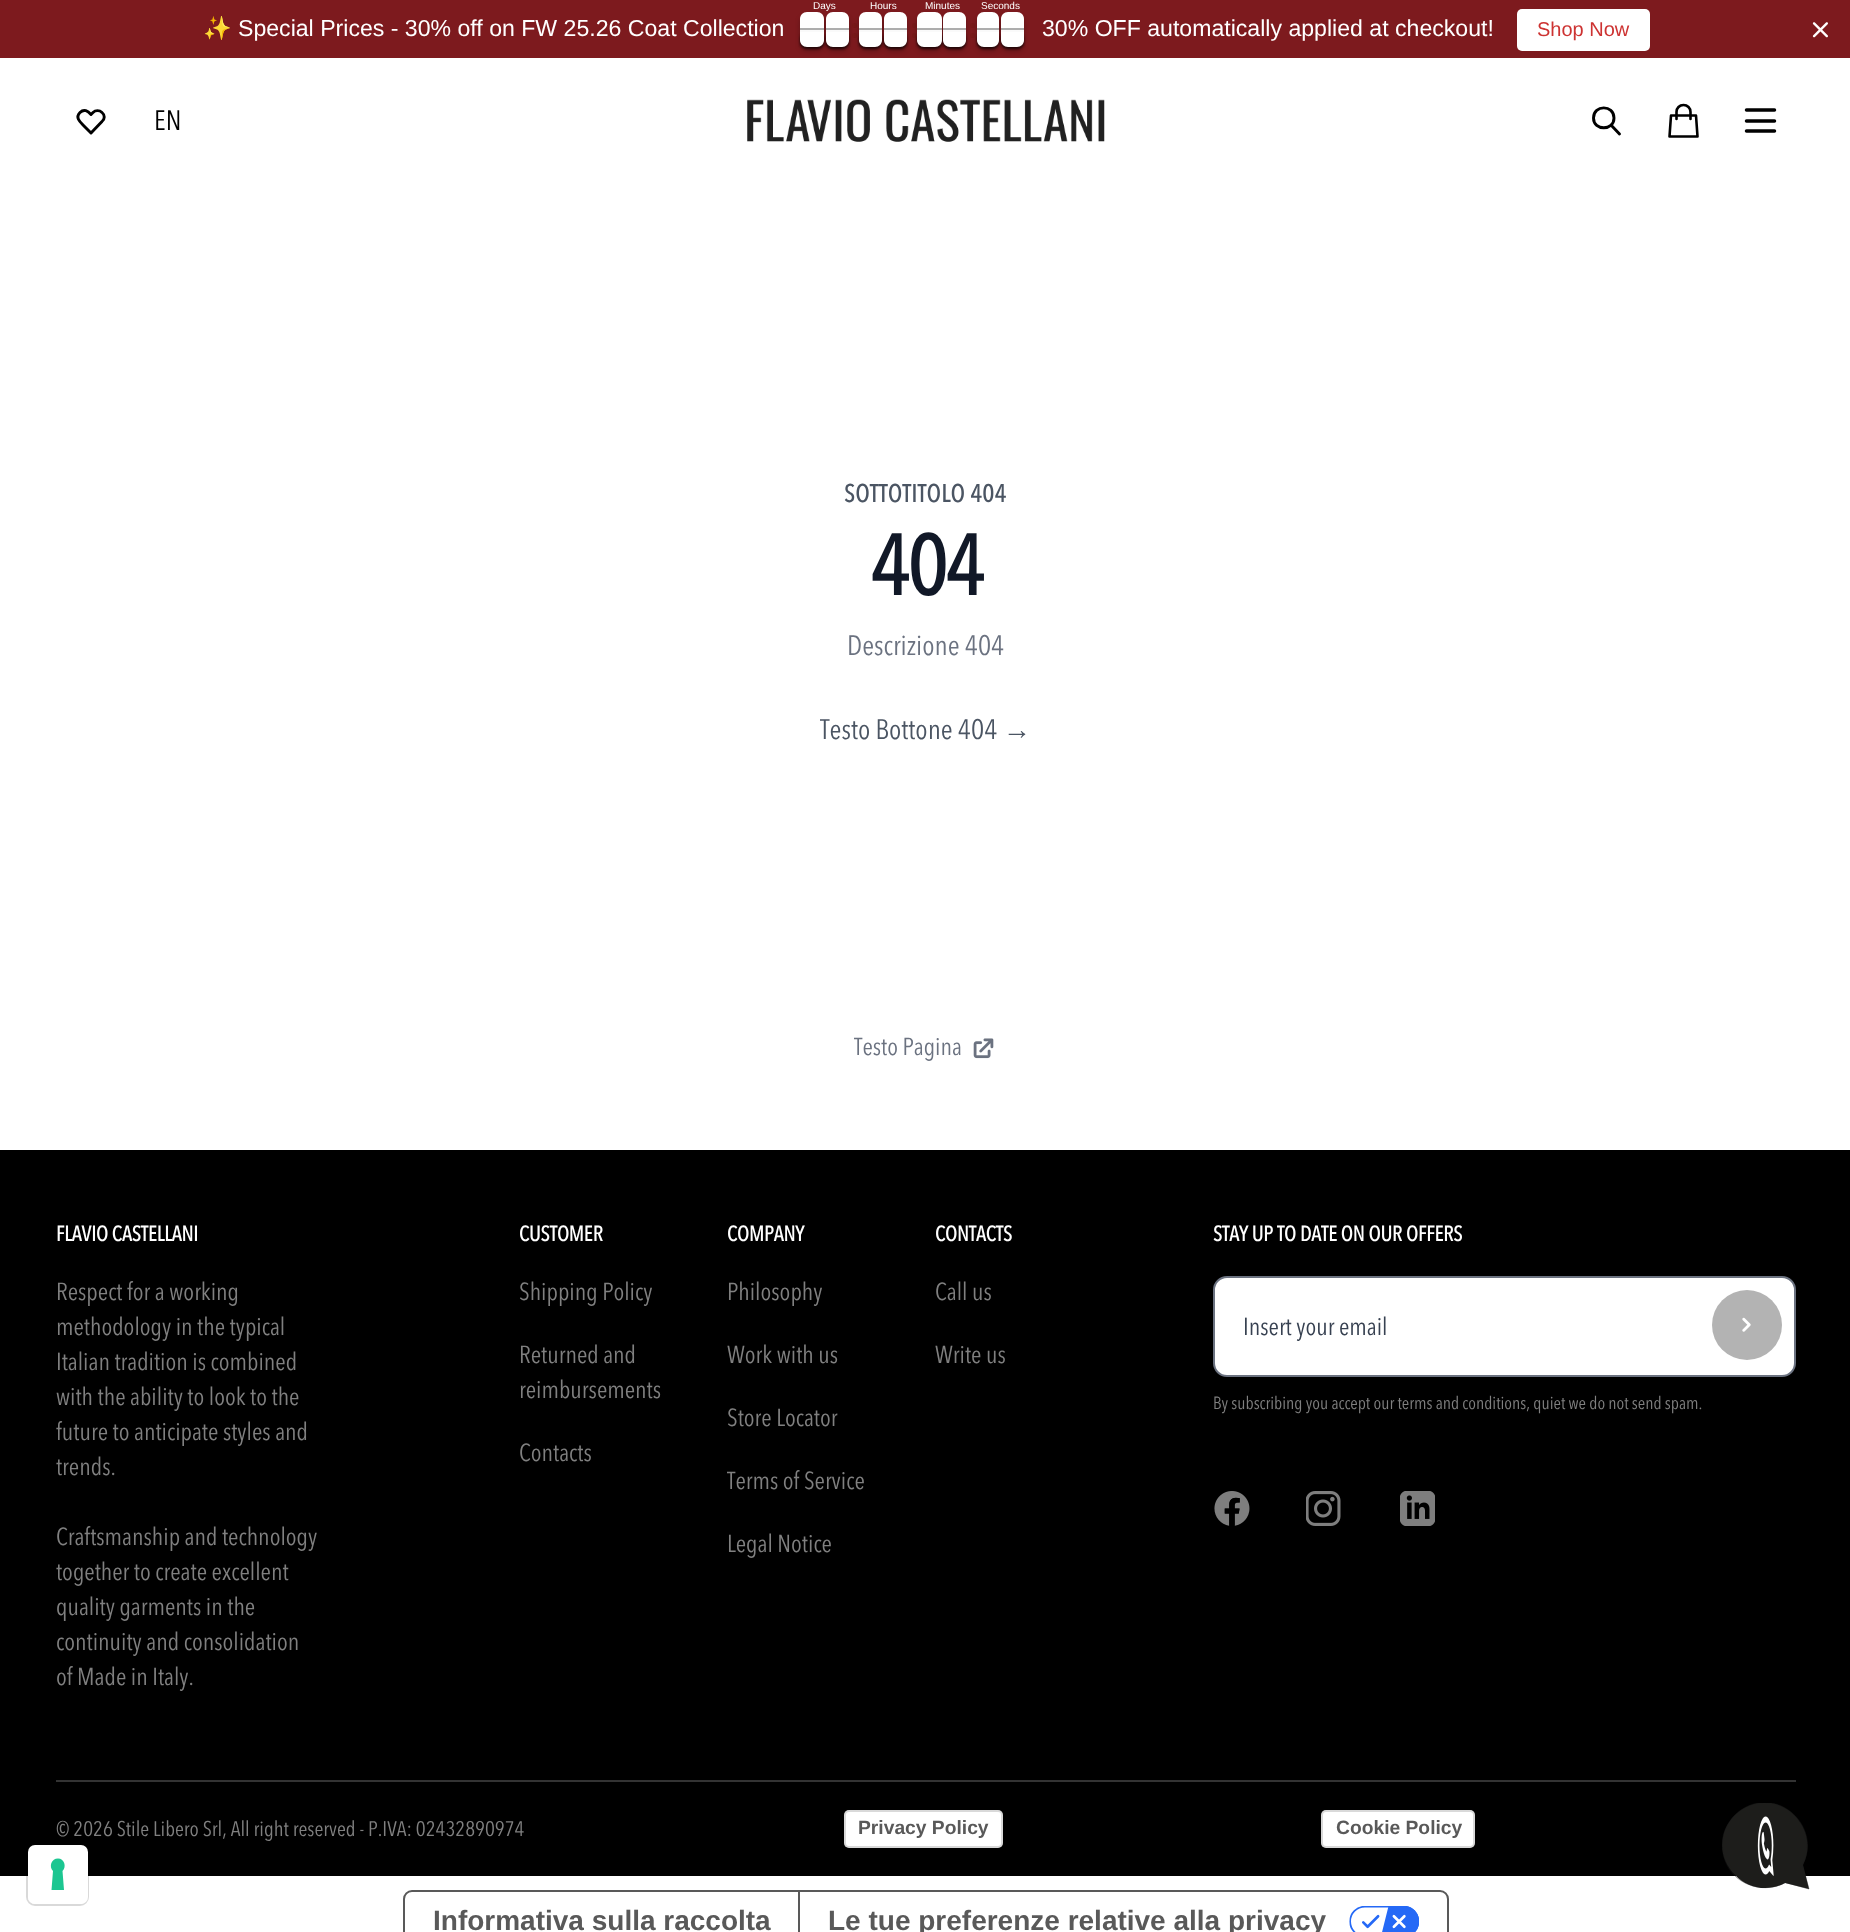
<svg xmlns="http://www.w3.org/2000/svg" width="1850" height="1932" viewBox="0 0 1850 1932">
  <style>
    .t1 { font: 10px Liberation Sans; fill: #fff; }
    .t2 { font: 23.1px Noto Color Emoji; fill: #fff; }
    .t3 { font: 23.1px Liberation Sans; fill: #fff; }
    .t4 { font: 20px Liberation Sans; fill: #cd3332; }
    .t5 { font: 28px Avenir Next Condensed; fill: #000; }
    .t6 { font: bold 24.5px Avenir Next Condensed; letter-spacing: 0.6px; fill: #4b5563; }
    .t7 { font: bold 84px Avenir Next Condensed; letter-spacing: -2px; fill: #111827; }
    .t8 { font: 28px Avenir Next Condensed; fill: #6b7280; }
    .t9 { font: 28px Avenir Next Condensed; fill: #4b5563; }
    .t10 { font: 28px Liberation Sans; fill: #4b5563; }
    .t11 { font: 24.5px Avenir Next Condensed; fill: #6b7280; }
    .t12 { font: bold 21px Avenir Next Condensed; fill: #fff; }
    .t13 { font: 24.5px Avenir Next Condensed; fill: #808080; }
    .t14 { font: 24.5px Avenir Next Condensed; fill: #374151; }
    .t15 { font: 17.5px Avenir Next Condensed; fill: #808080; }
    .t16 { font: 21px Avenir Next Condensed; fill: #808080; }
    .t17 { font: bold 19.25px Liberation Sans; fill: #595959; }
    .t18 { font: bold 28px Liberation Sans; fill: #595959; }
  </style>
  <defs>
    <clipPath id="clip1"><rect x="1722" y="1803" width="88" height="87"/></clipPath>
  </defs>
  <rect width="100%" height="100%" fill="#fff"/>
  <rect x="0" y="0" width="1850" height="58" fill="#7d1a1e"/>
  <rect x="800" y="16" width="24" height="35" rx="7" fill="#0000003d" filter="blur(2.5px)"/>
  <rect x="826" y="16" width="23" height="35" rx="7" fill="#0000003d" filter="blur(2.5px)"/>
  <text x="813" y="9" class="t1">Days</text>
  <rect x="800" y="32" width="24" height="17" rx="7" fill="#00000066" filter="blur(1px)"/>
  <circle cx="854.5" cy="35.5" r="2.5" fill="#771919"/>
  <rect x="826" y="32" width="23" height="17" rx="7" fill="#00000066" filter="blur(1px)"/>
  <path d="M807 12H817C821 12 824 15 824 19V30H800V19C800 15 803 12 807 12Z" fill="#fff"/>
  <rect x="800" y="28" width="24" height="2" fill="#33333366"/>
  <rect x="800" y="32" width="24" height="17" rx="7" fill="#00000066" filter="blur(1px)"/>
  <path d="M800 30H824V40C824 44 821 47 817 47H807C803 47 800 44 800 40Z" fill="#fff"/>
  <rect x="800" y="30" width="24" height="2" fill="#cccccc1a"/>
  <path d="M833 12H842C846 12 849 15 849 19V30H826V19C826 15 829 12 833 12Z" fill="#fff"/>
  <rect x="826" y="28" width="23" height="2" fill="#33333366"/>
  <rect x="826" y="32" width="23" height="17" rx="7" fill="#00000066" filter="blur(1px)"/>
  <path d="M826 30H849V40C849 44 846 47 842 47H833C829 47 826 44 826 40Z" fill="#fff"/>
  <rect x="826" y="30" width="23" height="2" fill="#cccccc1a"/>
  <circle cx="854.5" cy="25.5" r="2.5" fill="#771919"/>
  <rect x="859" y="16" width="23" height="35" rx="7" fill="#0000003d" filter="blur(2.5px)"/>
  <rect x="884" y="16" width="23" height="35" rx="7" fill="#0000003d" filter="blur(2.5px)"/>
  <text x="870" y="9" class="t1">Hours</text>
  <rect x="859" y="32" width="23" height="17" rx="7" fill="#00000066" filter="blur(1px)"/>
  <rect x="884" y="32" width="23" height="17" rx="7" fill="#00000066" filter="blur(1px)"/>
  <path d="M866 12H875C879 12 882 15 882 19V30H859V19C859 15 862 12 866 12Z" fill="#fff"/>
  <rect x="859" y="28" width="23" height="2" fill="#33333366"/>
  <rect x="859" y="32" width="23" height="17" rx="7" fill="#00000066" filter="blur(1px)"/>
  <path d="M859 30H882V40C882 44 879 47 875 47H866C862 47 859 44 859 40Z" fill="#fff"/>
  <rect x="859" y="30" width="23" height="2" fill="#cccccc1a"/>
  <path d="M891 12H900C904 12 907 15 907 19V30H884V19C884 15 887 12 891 12Z" fill="#fff"/>
  <rect x="884" y="28" width="23" height="2" fill="#33333366"/>
  <rect x="884" y="32" width="23" height="17" rx="7" fill="#00000066" filter="blur(1px)"/>
  <path d="M884 30H907V40C907 44 904 47 900 47H891C887 47 884 44 884 40Z" fill="#fff"/>
  <rect x="884" y="30" width="23" height="2" fill="#cccccc1a"/>
  <rect x="912" y="23" width="4" height="5" rx="2" fill="#771919"/>
  <rect x="912" y="33" width="4" height="5" rx="2" fill="#771919"/>
  <rect x="917" y="16" width="25" height="35" rx="7" fill="#0000003d" filter="blur(2.5px)"/>
  <rect x="943" y="16" width="23" height="35" rx="7" fill="#0000003d" filter="blur(2.5px)"/>
  <text x="925" y="9" class="t1">Minutes</text>
  <rect x="917" y="32" width="25" height="17" rx="7" fill="#00000066" filter="blur(1px)"/>
  <rect x="943" y="32" width="23" height="17" rx="7" fill="#00000066" filter="blur(1px)"/>
  <path d="M924 12H935C939 12 942 15 942 19V30H917V19C917 15 920 12 924 12Z" fill="#fff"/>
  <rect x="917" y="28" width="25" height="2" fill="#33333366"/>
  <rect x="917" y="32" width="25" height="17" rx="7" fill="#00000066" filter="blur(1px)"/>
  <path d="M917 30H942V40C942 44 939 47 935 47H924C920 47 917 44 917 40Z" fill="#fff"/>
  <rect x="917" y="30" width="25" height="2" fill="#cccccc1a"/>
  <path d="M950 12H959C963 12 966 15 966 19V30H943V19C943 15 946 12 950 12Z" fill="#fff"/>
  <rect x="943" y="28" width="23" height="2" fill="#33333366"/>
  <rect x="943" y="32" width="23" height="17" rx="7" fill="#00000066" filter="blur(1px)"/>
  <path d="M943 30H966V40C966 44 963 47 959 47H950C946 47 943 44 943 40Z" fill="#fff"/>
  <rect x="943" y="30" width="23" height="2" fill="#cccccc1a"/>
  <circle cx="972.5" cy="25.5" r="2.5" fill="#771919"/>
  <circle cx="972.5" cy="35.5" r="2.5" fill="#771919"/>
  <rect x="977" y="16" width="22" height="35" rx="7" fill="#0000003d" filter="blur(2.5px)"/>
  <rect x="1001" y="16" width="23" height="35" rx="7" fill="#0000003d" filter="blur(2.5px)"/>
  <text x="981" y="9" class="t1">Seconds</text>
  <rect x="977" y="32" width="22" height="17" rx="7" fill="#00000066" filter="blur(1px)"/>
  <rect x="1001" y="32" width="23" height="17" rx="7" fill="#00000066" filter="blur(1px)"/>
  <path d="M984 12H992C996 12 999 15 999 19V30H977V19C977 15 980 12 984 12Z" fill="#fff"/>
  <rect x="977" y="28" width="22" height="2" fill="#33333366"/>
  <rect x="977" y="32" width="22" height="17" rx="7" fill="#00000066" filter="blur(1px)"/>
  <path d="M977 30H999V40C999 44 996 47 992 47H984C980 47 977 44 977 40Z" fill="#fff"/>
  <rect x="977" y="30" width="22" height="2" fill="#cccccc1a"/>
  <path d="M1008 12H1017C1021 12 1024 15 1024 19V30H1001V19C1001 15 1004 12 1008 12Z" fill="#fff"/>
  <rect x="1001" y="28" width="23" height="2" fill="#33333366"/>
  <rect x="1001" y="32" width="23" height="17" rx="7" fill="#00000066" filter="blur(1px)"/>
  <path d="M1001 30H1024V40C1024 44 1021 47 1017 47H1008C1004 47 1001 44 1001 40Z" fill="#fff"/>
  <rect x="1001" y="30" width="23" height="2" fill="#cccccc1a"/>
  <text x="203" y="36" class="t2">✨</text>
  <text x="238" y="36" class="t3">Special Prices - 30% off on FW 25.26 Coat Collection</text>
  <text x="1042" y="36" class="t3">30% OFF automatically applied at checkout!</text>
  <rect x="1517" y="9" width="133" height="42" rx="5" fill="#fff"/>
  <text x="1537" y="36" class="t4">Shop Now</text>
  <image x="1812" y="22" width="16" height="16" href="images/1.png"/>
  <path d="M80 112.5C75 117.5 80 122 83.5 125.5L91 133L102 121.5C105 119 105 115 102 112.5C99.5 110 95.5 110 93 112.5L91 114.5C88 111 84 108.5 80 112.5Z" fill="none" stroke="#000" stroke-width="2.9" stroke-linecap="round" stroke-linejoin="round"/>
  <text x="154" y="130" class="t5">EN</text>
  <image x="747" y="99" width="358" height="43" href="images/2.png"/>
  <path d="M1619.5 134L1611 125M1614 118C1614 131 1593.5 131 1593.5 118C1593.5 104.5 1614 104.5 1614 118Z" fill="none" stroke="#000" stroke-width="2.9" stroke-linecap="round" stroke-linejoin="round"/>
  <path d="M1690.5 119V112C1690.5 108 1687.5 105 1683.5 105C1679.5 105 1676.5 108 1676.5 112V119M1671 115.5H1696L1697.5 136.5H1669.5Z" fill="none" stroke="#000" stroke-width="2.6" stroke-linecap="round" stroke-linejoin="round"/>
  <path d="M1746.5 110H1774.5M1746.5 121H1774.5M1746.5 131H1774.5" fill="none" stroke="#000" stroke-width="3.5" stroke-linecap="round" stroke-linejoin="round"/>
  <text x="844" y="502" class="t6">SOTTOTITOLO 404</text>
  <text x="870" y="595" class="t7">404</text>
  <text x="847" y="655" class="t8">Descrizione 404</text>
  <text x="820" y="739" class="t9">Testo Bottone 404</text>
  <text x="1003" y="739" class="t10">→</text>
  <text x="854" y="1055" class="t11">Testo Pagina</text>
  <image x="973" y="1038" width="21" height="21" href="images/3.png"/>
  <rect x="0" y="1150" width="1850" height="726" fill="#000"/>
  <text x="56" y="1241" class="t12">FLAVIO CASTELLANI</text>
  <text x="56" y="1300" class="t13">Respect for a working</text>
  <text x="56" y="1335" class="t13">methodology in the typical</text>
  <text x="56" y="1370" class="t13">Italian tradition is combined</text>
  <text x="56" y="1405" class="t13">with the ability to look to the</text>
  <text x="56" y="1440" class="t13">future to anticipate styles and</text>
  <text x="56" y="1475" class="t13">trends.</text>
  <text x="56" y="1545" class="t13">Craftsmanship and technology</text>
  <text x="56" y="1580" class="t13">together to create excellent</text>
  <text x="56" y="1615" class="t13">quality garments in the</text>
  <text x="56" y="1650" class="t13">continuity and consolidation</text>
  <text x="56" y="1685" class="t13">of Made in Italy.</text>
  <text x="519" y="1241" class="t12">CUSTOMER</text>
  <text x="519" y="1300" class="t13">Shipping Policy</text>
  <text x="519" y="1363" class="t13">Returned and</text>
  <text x="519" y="1398" class="t13">reimbursements</text>
  <text x="519" y="1461" class="t13">Contacts</text>
  <text x="727" y="1241" class="t12">COMPANY</text>
  <text x="727" y="1300" class="t13">Philosophy</text>
  <text x="727" y="1363" class="t13">Work with us</text>
  <text x="727" y="1426" class="t13">Store Locator</text>
  <text x="727" y="1489" class="t13">Terms of Service</text>
  <text x="727" y="1552" class="t13">Legal Notice</text>
  <text x="935" y="1241" class="t12">CONTACTS</text>
  <text x="935" y="1300" class="t13">Call us</text>
  <text x="935" y="1363" class="t13">Write us</text>
  <text x="1213" y="1241" class="t12">STAY UP TO DATE ON OUR OFFERS</text>
  <rect x="1214" y="1277" width="581" height="99" rx="13" fill="#fff" stroke="#6b7280" stroke-width="2"/>
  <text x="1243" y="1335" class="t14">Insert your email</text>
  <circle cx="1747" cy="1325" r="35" fill="#b3b3b3"/>
  <image x="1742" y="1317" width="9" height="15" href="images/4.png"/>
  <text x="1213" y="1409" class="t15">By subscribing you accept our terms and conditions, quiet we do not send spam.</text>
  <image x="1214" y="1491" width="36" height="35" href="images/5.png"/>
  <image x="1306" y="1491" width="35" height="35" href="images/6.png"/>
  <image x="1400" y="1491" width="35" height="35" href="images/7.png"/>
  <rect x="56" y="1780" width="1740" height="2" fill="#333"/>
  <text x="56" y="1836" class="t16">© 2026 Stile Libero Srl, All right reserved - P.IVA: 02432890974</text>
  <rect x="844" y="1810" width="159" height="38" rx="5" fill="#fff"/>
  <rect x="845" y="1811" width="157" height="36" rx="4" fill="none" stroke="#00000026" stroke-width="2"/>
  <text x="858" y="1834" class="t17">Privacy Policy</text>
  <rect x="1321" y="1810" width="154" height="38" rx="5" fill="#fff"/>
  <rect x="1322" y="1811" width="152" height="36" rx="4" fill="none" stroke="#00000026" stroke-width="2"/>
  <text x="1336" y="1834" class="t17">Cookie Policy</text>
  <g clip-path="url(#clip1)">
    <path d="M1809 1889L1803 1865C1822 1827 1778 1785 1741 1810C1732 1816 1725 1826 1723 1837C1720 1851 1725 1865 1735 1875C1748 1889 1769 1892 1785 1883Z" fill="#1d1d1b"/>
    <path d="M1809 1889L1802.5 1865C1822.5 1827 1778 1785 1741 1810C1732 1816 1725.5 1826 1723 1836.5C1720.5 1850.5 1724.5 1865.5 1734.5 1875.5C1748 1888.5 1769 1891.5 1785.5 1882.5Z" fill="none" stroke="#1d1d1b" stroke-width="0.4"/>
  </g>
  <image x="1757" y="1816" width="17" height="60" href="images/8.png"/>
  <rect x="27" y="1844" width="61" height="61" rx="8" fill="none" stroke="#00000026" stroke-width="2"/>
  <rect x="28" y="1845" width="60" height="59" rx="7" fill="#fff"/>
  <path d="M58 1858.5C64 1858.5 67 1866.5 62.5 1871L64 1890H51.5L53 1871C48.5 1866.5 51.5 1858.5 58 1858.5Z" fill="#1cc691" fill-rule="evenodd"/>
  <rect x="404" y="1891" width="1044" height="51" rx="8" fill="none" stroke="#595959" stroke-width="2"/>
  <text x="433" y="1930" class="t18">Informativa sulla raccolta</text>
  <rect x="798" y="1892" width="2" height="40" fill="#595959"/>
  <text x="828" y="1930" class="t18">Le tue preferenze relative alla privacy</text>
  <image x="1349" y="1906" width="70" height="26" href="images/9.png"/>
</svg>
